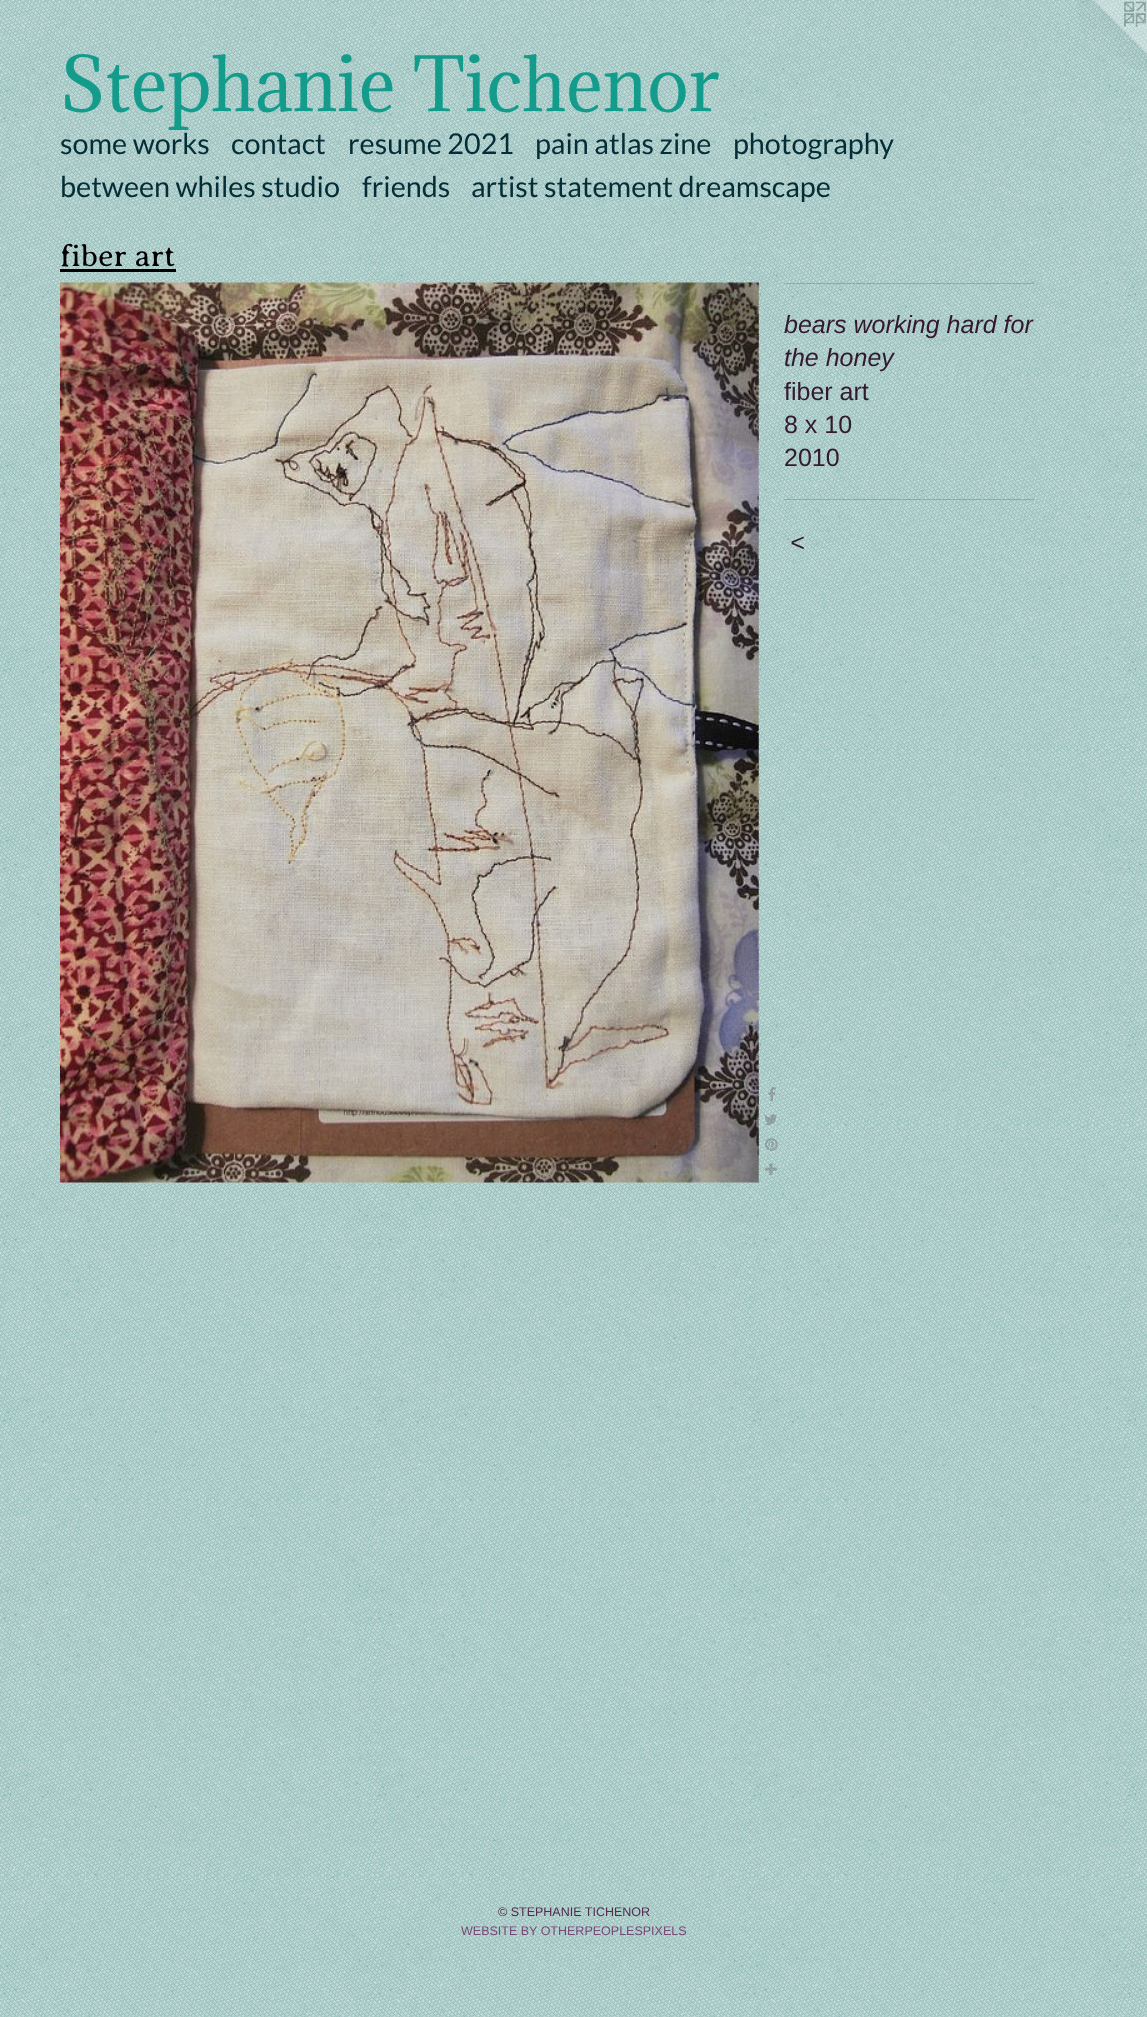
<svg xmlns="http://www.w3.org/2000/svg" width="1147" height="2017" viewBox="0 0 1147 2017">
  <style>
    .t1 { font: 70px Adamina; fill: #139c8c; }
    .t2 { font: 28.75px Lato; fill: #042d37; }
    .t3 { font: 300 31px Averia Serif Libre; fill: #000; }
    .t4 { font: italic 25px Liberation Sans; fill: #33192e; }
    .t5 { font: 25px Liberation Sans; fill: #33192e; }
    .t6 { font: italic 25px Liberation Sans; letter-spacing: 1px; fill: #33192e; }
    .t7 { font: 12.5px Liberation Sans; fill: #532c4b; }
    .t8 { font: 12.5px Liberation Sans; fill: #774777; }
  </style>
  <rect width="100%" height="100%" fill="#fff"/>
  <image x="0" y="0" width="1147" height="2017" href="images/1.png"/>
  <image x="1078" y="0" width="69" height="69" href="images/2.png"/>
  <text x="60" y="111" class="t1">Stephanie Tichenor</text>
  <text x="60" y="154" class="t2">some works</text>
  <text x="231" y="154" class="t2">contact</text>
  <text x="348" y="154" class="t2">resume 2021</text>
  <text x="535" y="154" class="t2">pain atlas zine</text>
  <text x="733" y="154" class="t2">photography</text>
  <text x="60" y="197" class="t2">between whiles studio</text>
  <text x="362" y="197" class="t2">friends</text>
  <text x="471" y="197" class="t2">artist statement dreamscape</text>
  <text x="60" y="266" class="t3">fiber art</text>
  <rect x="60" y="269" width="116" height="3" fill="#000"/>
  <image x="60" y="282" width="699" height="901" href="images/3.png"/>
  <image x="768" y="1087" width="8" height="14" href="images/4.png"/>
  <image x="764" y="1114" width="13" height="11" href="images/5.png"/>
  <image x="765" y="1138" width="13" height="13" href="images/6.png"/>
  <image x="765" y="1163" width="12" height="12" href="images/7.png"/>
  <rect x="784" y="283" width="250" height="1" fill="#33192e33"/>
  <text x="784" y="333" class="t4">bears working hard for</text>
  <text x="784" y="366" class="t4">the honey</text>
  <text x="784" y="400" class="t5">fiber art</text>
  <text x="784" y="433" class="t5">8 x 10</text>
  <text x="784" y="466" class="t5">2010</text>
  <rect x="784" y="499" width="250" height="1" fill="#33192e33"/>
  <text x="790" y="551" class="t6">&lt;</text>
  <text x="498" y="1916" class="t7">© STEPHANIE TICHENOR</text>
  <text x="461" y="1935" class="t8">WEBSITE BY OTHERPEOPLESPIXELS</text>
</svg>
